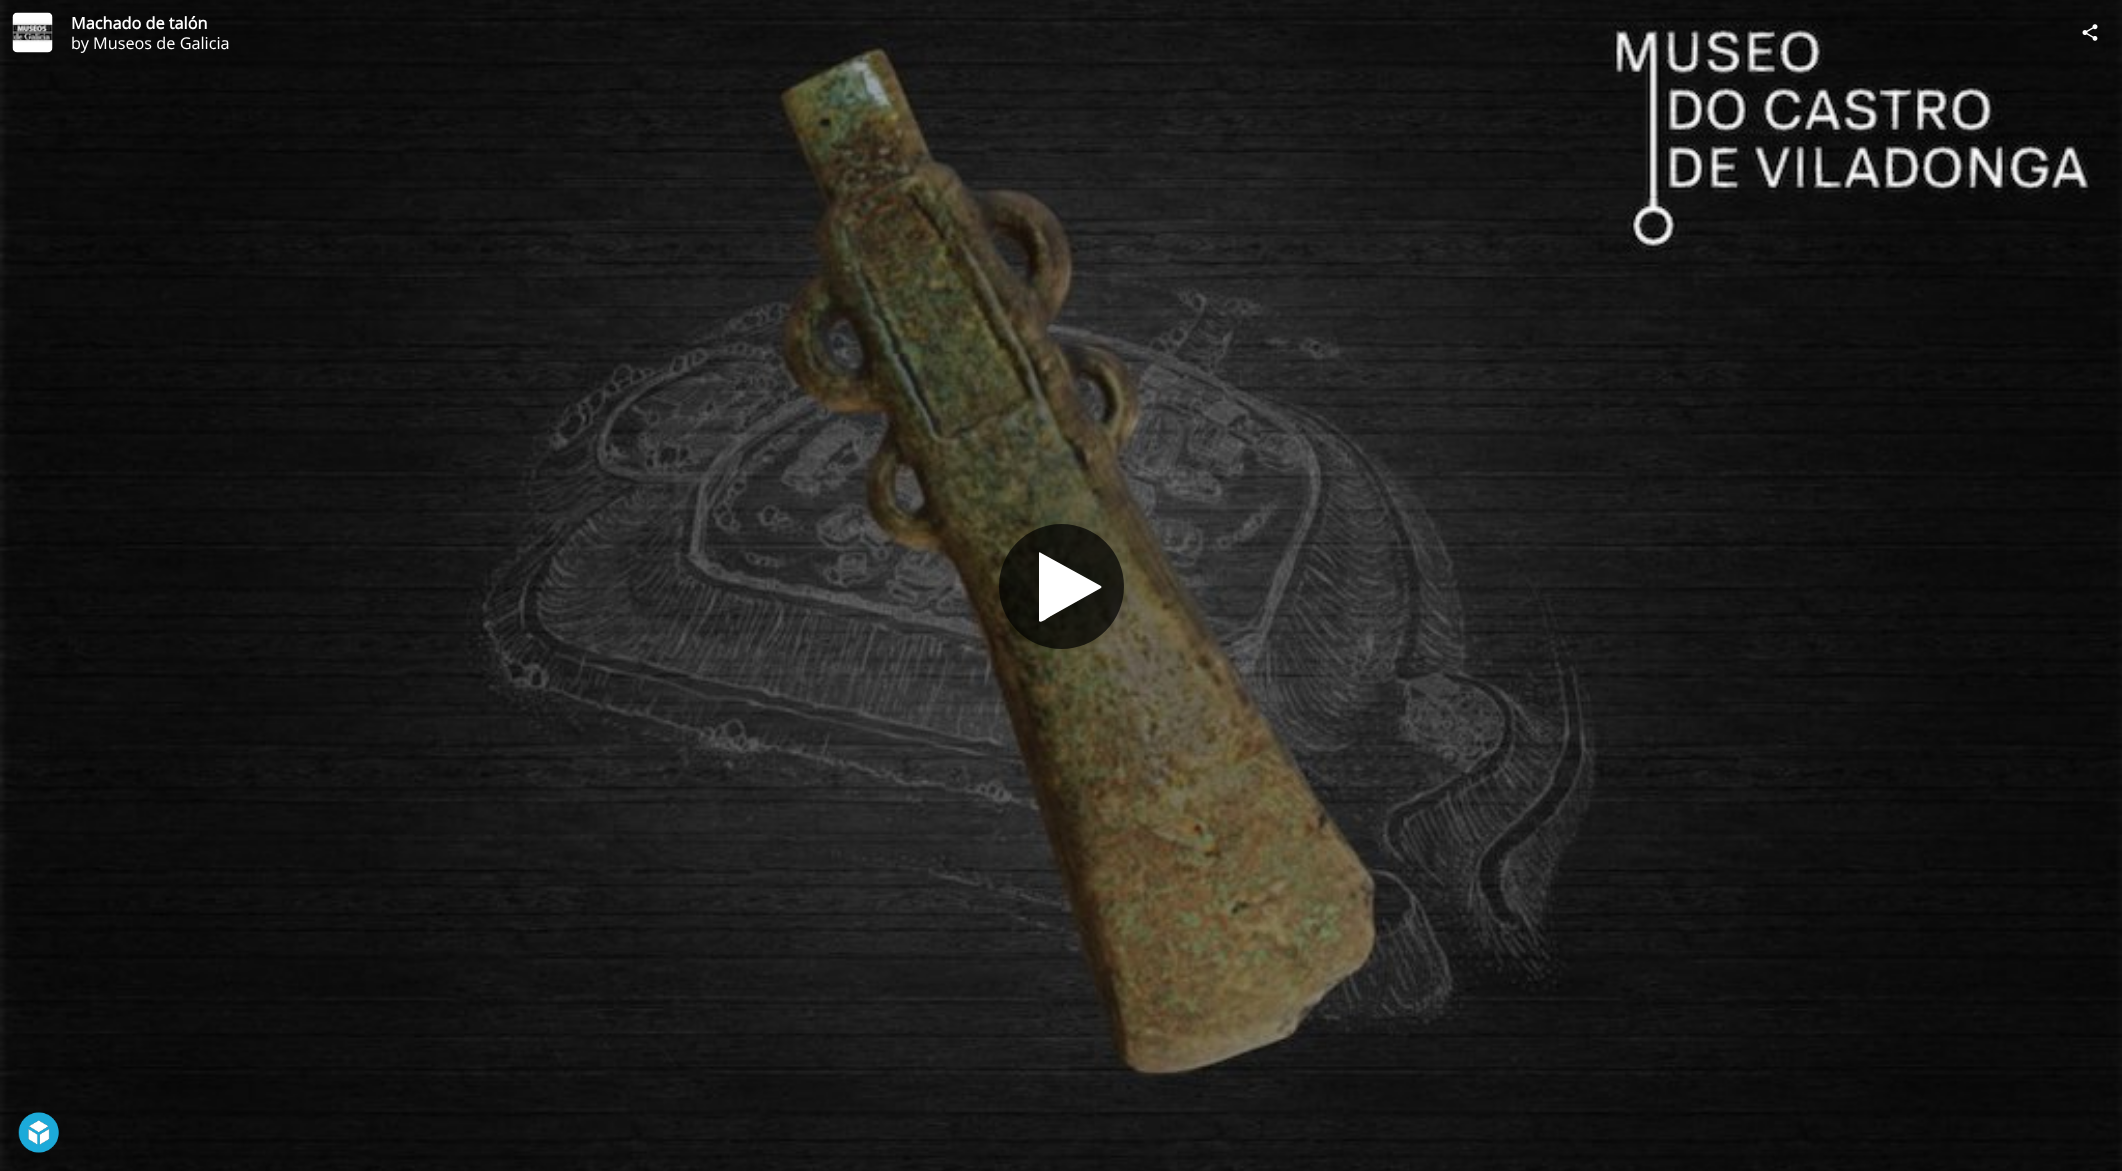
<svg xmlns="http://www.w3.org/2000/svg" width="2122" height="1171" viewBox="0 0 2122 1171">
  <style>
    .t1 { font: bold 16.25px Open Sans; fill: #fff; }
    .t2 { font: 16.25px Open Sans; fill: #fff; }
  </style>
  <rect width="100%" height="100%" fill="#fff"/>
  <image x="0" y="0" width="2122" height="1171" href="images/1.png"/>
  <circle cx="1061.5" cy="586.5" r="62.5" fill="#000000b3"/>
  <path d="M1101 588L1051 616C1050 616 1041 624 1039 621V553C1039 552 1040 552 1041 553L1101 586C1102 587 1101 588 1101 588Z" fill="#fff"/>
  <image x="18" y="1112" width="41" height="41" href="images/2.png"/>
  <image x="12" y="12" width="41" height="41" href="images/3.png"/>
  <text x="71" y="29" class="t1">Machado de talón</text>
  <text x="71" y="49" class="t2">by Museos de Galicia</text>
  <image x="2082" y="24" width="16" height="17" href="images/4.png"/>
</svg>
